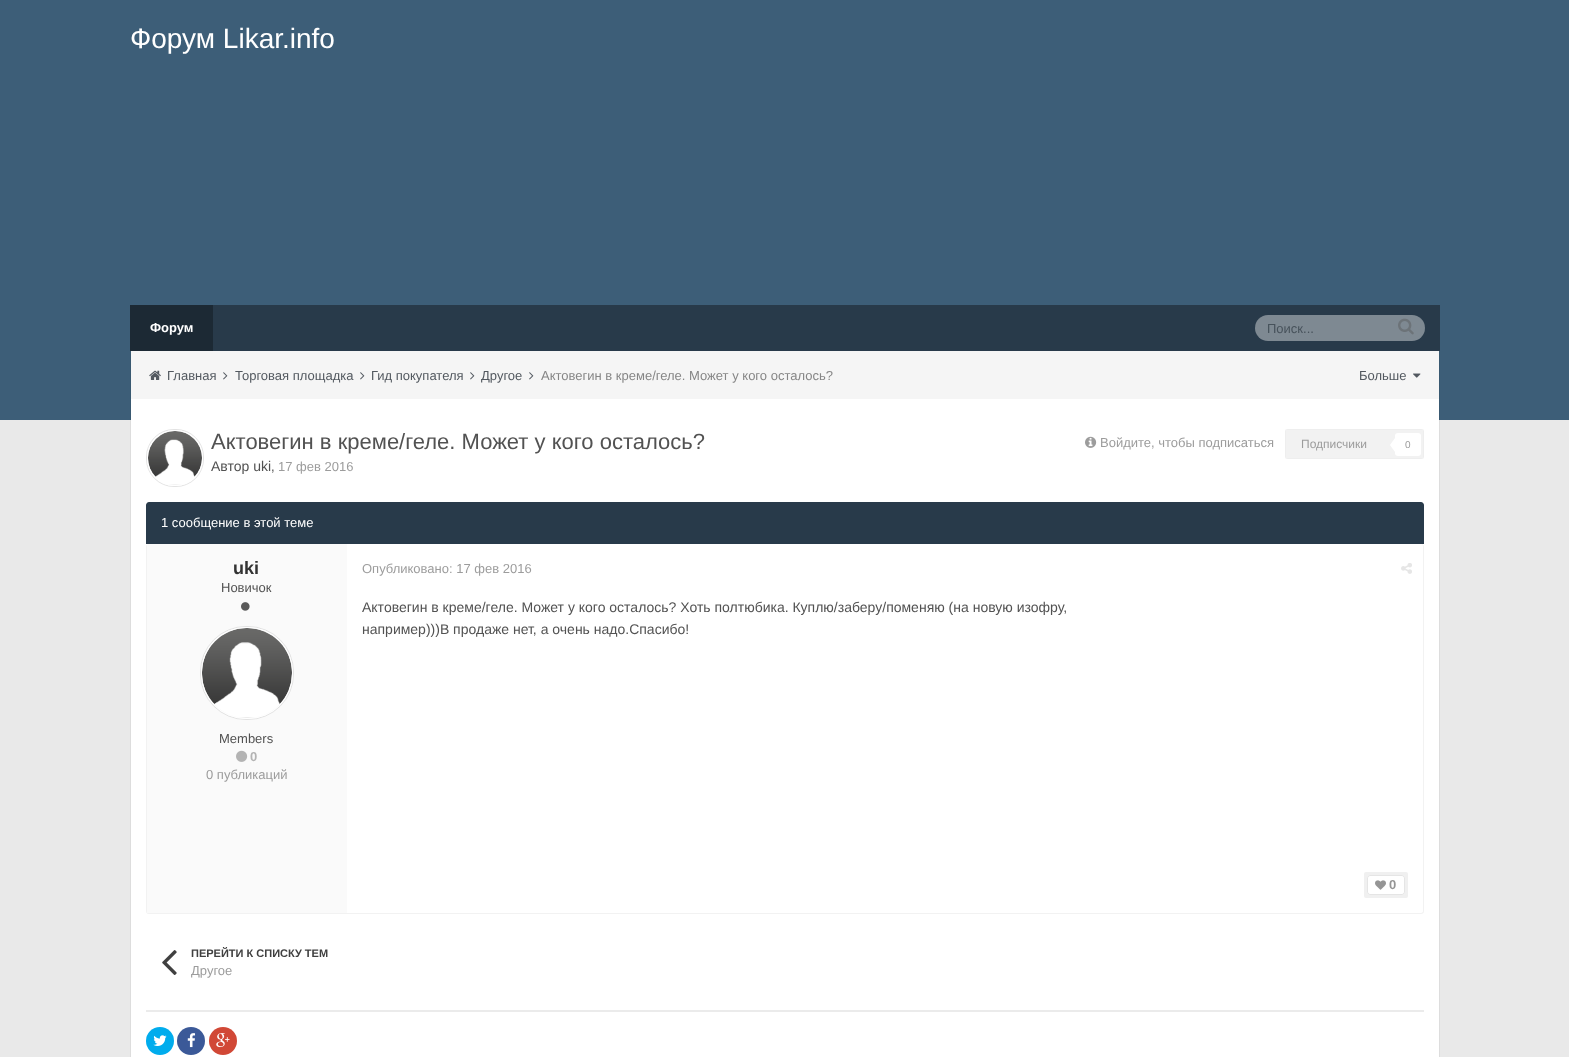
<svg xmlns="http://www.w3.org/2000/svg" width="1569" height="1057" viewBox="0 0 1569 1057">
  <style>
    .t1 { font: 28px Liberation Sans; fill: #fff; }
    .t2 { font: bold 13px Liberation Sans; fill: #fff; }
    .t3 { font: 13px Liberation Sans; fill: #47525b; }
    .t4 { font: 13px Liberation Sans; fill: #52585f; }
    .t5 { font: 13px Liberation Sans; fill: #868686; }
    .t6 { font: 22px Liberation Sans; fill: #525252; }
    .t7 { font: 14px Liberation Sans; fill: #525252; }
    .t8 { font: 13px Liberation Sans; fill: #525252; }
    .t9 { font: 13px Liberation Sans; fill: #9c9c9c; }
    .t10 { font: 12px Liberation Sans; fill: #9c9c9c; }
    .t11 { font: 10px Liberation Sans; fill: #9c9c9c; }
    .t12 { font: 13px Liberation Sans; fill: #fff; }
    .t13 { font: bold 18px Liberation Sans; fill: #333; }
    .t14 { font: bold 13px Liberation Sans; fill: #b3b3b3; }
    .t15 { font: bold 13px Liberation Sans; fill: #959595; }
    .t16 { font: bold 11px Liberation Sans; fill: #404040; }
  </style>
  <defs>
    <clipPath id="clip1"><rect x="191" y="962" width="565" height="18"/></clipPath>
  </defs>
  <rect width="100%" height="100%" fill="#e9e9e9"/>
  <rect x="0" y="0" width="1569" height="420" fill="#3d5e78"/>
  <text x="130" y="48" class="t1">Форум Likar.info</text>
  <rect x="213" y="305" width="1227" height="46" fill="#283a4a"/>
  <rect x="130" y="305" width="83" height="46" fill="#1c2934"/>
  <text x="150" y="332" class="t2">Форум</text>
  <rect x="1255" y="315" width="170" height="26" rx="13" fill="#7e8992"/>
  <text x="1267" y="333" class="t3">Поиск...</text>
  <image x="1398" y="318" width="16" height="17" href="images/1.png"/>
  <path d="M1440 351V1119L1439 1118V351Z" fill="#0000000d"/>
  <path d="M130 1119V351H131V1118Z" fill="#0000000d"/>
  <rect x="131" y="351" width="1308" height="48" fill="#f5f5f5"/>
  <image x="149" y="370" width="12" height="10" href="images/2.png"/>
  <text x="167" y="380" class="t4">Главная</text>
  <image x="223" y="372" width="5" height="8" href="images/3.png"/>
  <text x="235" y="380" class="t4">Торговая площадка</text>
  <image x="360" y="372" width="5" height="8" href="images/3.png"/>
  <text x="371" y="380" class="t4">Гид покупателя</text>
  <image x="470" y="372" width="5" height="8" href="images/3.png"/>
  <text x="481" y="380" class="t4">Другое</text>
  <image x="529" y="372" width="5" height="8" href="images/3.png"/>
  <text x="541" y="380" class="t5">Актовегин в креме/геле. Может у кого осталось?</text>
  <text x="1359" y="380" class="t4">Больше</text>
  <image x="1413" y="373" width="8" height="5" href="images/4.png"/>
  <rect x="131" y="399" width="1308" height="658" fill="#fff"/>
  <image x="148" y="431" width="54" height="54" href="images/5.png"/>
  <rect x="146.5" y="429.5" width="57" height="57" rx="27.5" fill="none" stroke="#e2e2e2"/>
  <rect x="147.5" y="430.5" width="55" height="55" rx="26.5" fill="none" stroke="#fff"/>
  <text x="211" y="449" class="t6">Актовегин в креме/геле. Может у кого осталось?</text>
  <text x="211" y="471" class="t7">Автор uki</text>
  <text x="271" y="471" class="t8">,</text>
  <text x="278" y="471" class="t9">17 фев 2016</text>
  <image x="1085" y="436" width="12" height="12" href="images/6.png"/>
  <text x="1100" y="447" class="t9">Войдите, чтобы подписаться</text>
  <rect x="1285" y="429" width="139" height="30" rx="3" fill="#f2f2f2"/>
  <rect x="1285.5" y="429.5" width="138" height="29" fill="none" stroke="#80808008"/>
  <text x="1301" y="448" class="t10">Подписчики</text>
  <rect x="1395" y="433" width="26" height="23" rx="3" fill="#fff"/>
  <path d="M1395 438V452L1390 445Z" fill="#fff"/>
  <text x="1405" y="448" class="t11">0</text>
  <path d="M149 502H1421C1422.5 502 1424 503.5 1424 505V544H146V505C146 503.5 147.5 502 149 502Z" fill="#283a4a"/>
  <text x="161" y="527" class="t12">1 сообщение в этой теме</text>
  <path d="M149 544H1421C1423 544 1424 545 1424 547V911C1424 913 1423 914 1421 914H149C147 914 146 913 146 911V547C146 545 147 544 149 544ZM149 544H1421C1422 544 1423 545 1423 547V911C1423 912 1422 913 1421 913H149C148 913 147 912 147 911V547C147 545 148 544 149 544Z" fill="#f2f2f2" fill-rule="evenodd"/>
  <rect x="147" y="544" width="200" height="369" fill="#fafafa"/>
  <text x="233" y="574" class="t13">uki</text>
  <text x="221" y="592" class="t8">Новичок</text>
  <image x="241" y="602" width="9" height="9" href="images/7.png"/>
  <circle cx="247" cy="673" r="45" fill="#fff"/>
  <image x="202" y="628" width="90" height="90" href="images/8.png"/>
  <rect x="200.5" y="626.5" width="93" height="93" rx="45.5" fill="none" stroke="#e2e2e2"/>
  <rect x="201.5" y="627.5" width="91" height="91" rx="44.5" fill="none" stroke="#fff"/>
  <text x="219" y="743" class="t8">Members</text>
  <image x="236" y="750" width="12" height="12" href="images/9.png"/>
  <text x="250" y="761" class="t14">0</text>
  <text x="206" y="779" class="t9">0 публикаций</text>
  <text x="362" y="573" class="t9">Опубликовано: 17 фев 2016</text>
  <image x="1401" y="563" width="11" height="11" href="images/10.png"/>
  <text x="362" y="612" class="t7">Актовегин в креме/геле. Может у кого осталось? Хоть полтюбика. Куплю/заберу/поменяю (на новую изофру,</text>
  <text x="362" y="634" class="t7">например)))В продаже нет, а очень надо.Спасибо!</text>
  <rect x="1364" y="872" width="44" height="26" rx="2" fill="#f0f0f0"/>
  <rect x="1367" y="875" width="38" height="20" rx="3" fill="#fff"/>
  <rect x="1367.5" y="875.5" width="37" height="19" rx="2.5" fill="none" stroke="#0000001a"/>
  <image x="1375" y="880" width="11" height="10" href="images/11.png"/>
  <text x="1389" y="889" class="t15">0</text>
  <image x="162" y="950" width="15" height="25" href="images/12.png"/>
  <text x="191" y="957" class="t16">ПЕРЕЙТИ К СПИСКУ ТЕМ</text>
  <g clip-path="url(#clip1)">
    <text x="191" y="975" class="t9">Другое</text>
  </g>
  <rect x="146" y="1010" width="1278" height="2" fill="#ebebeb"/>
  <circle cx="160" cy="1041" r="14" fill="#00aced"/>
  <image x="153" y="1035" width="14" height="11" href="images/13.png"/>
  <circle cx="191" cy="1041" r="14" fill="#3b5998"/>
  <image x="187" y="1033" width="9" height="15" href="images/14.png"/>
  <circle cx="223" cy="1041" r="14" fill="#d14836"/>
  <image x="216" y="1033" width="14" height="15" href="images/15.png"/>
</svg>
